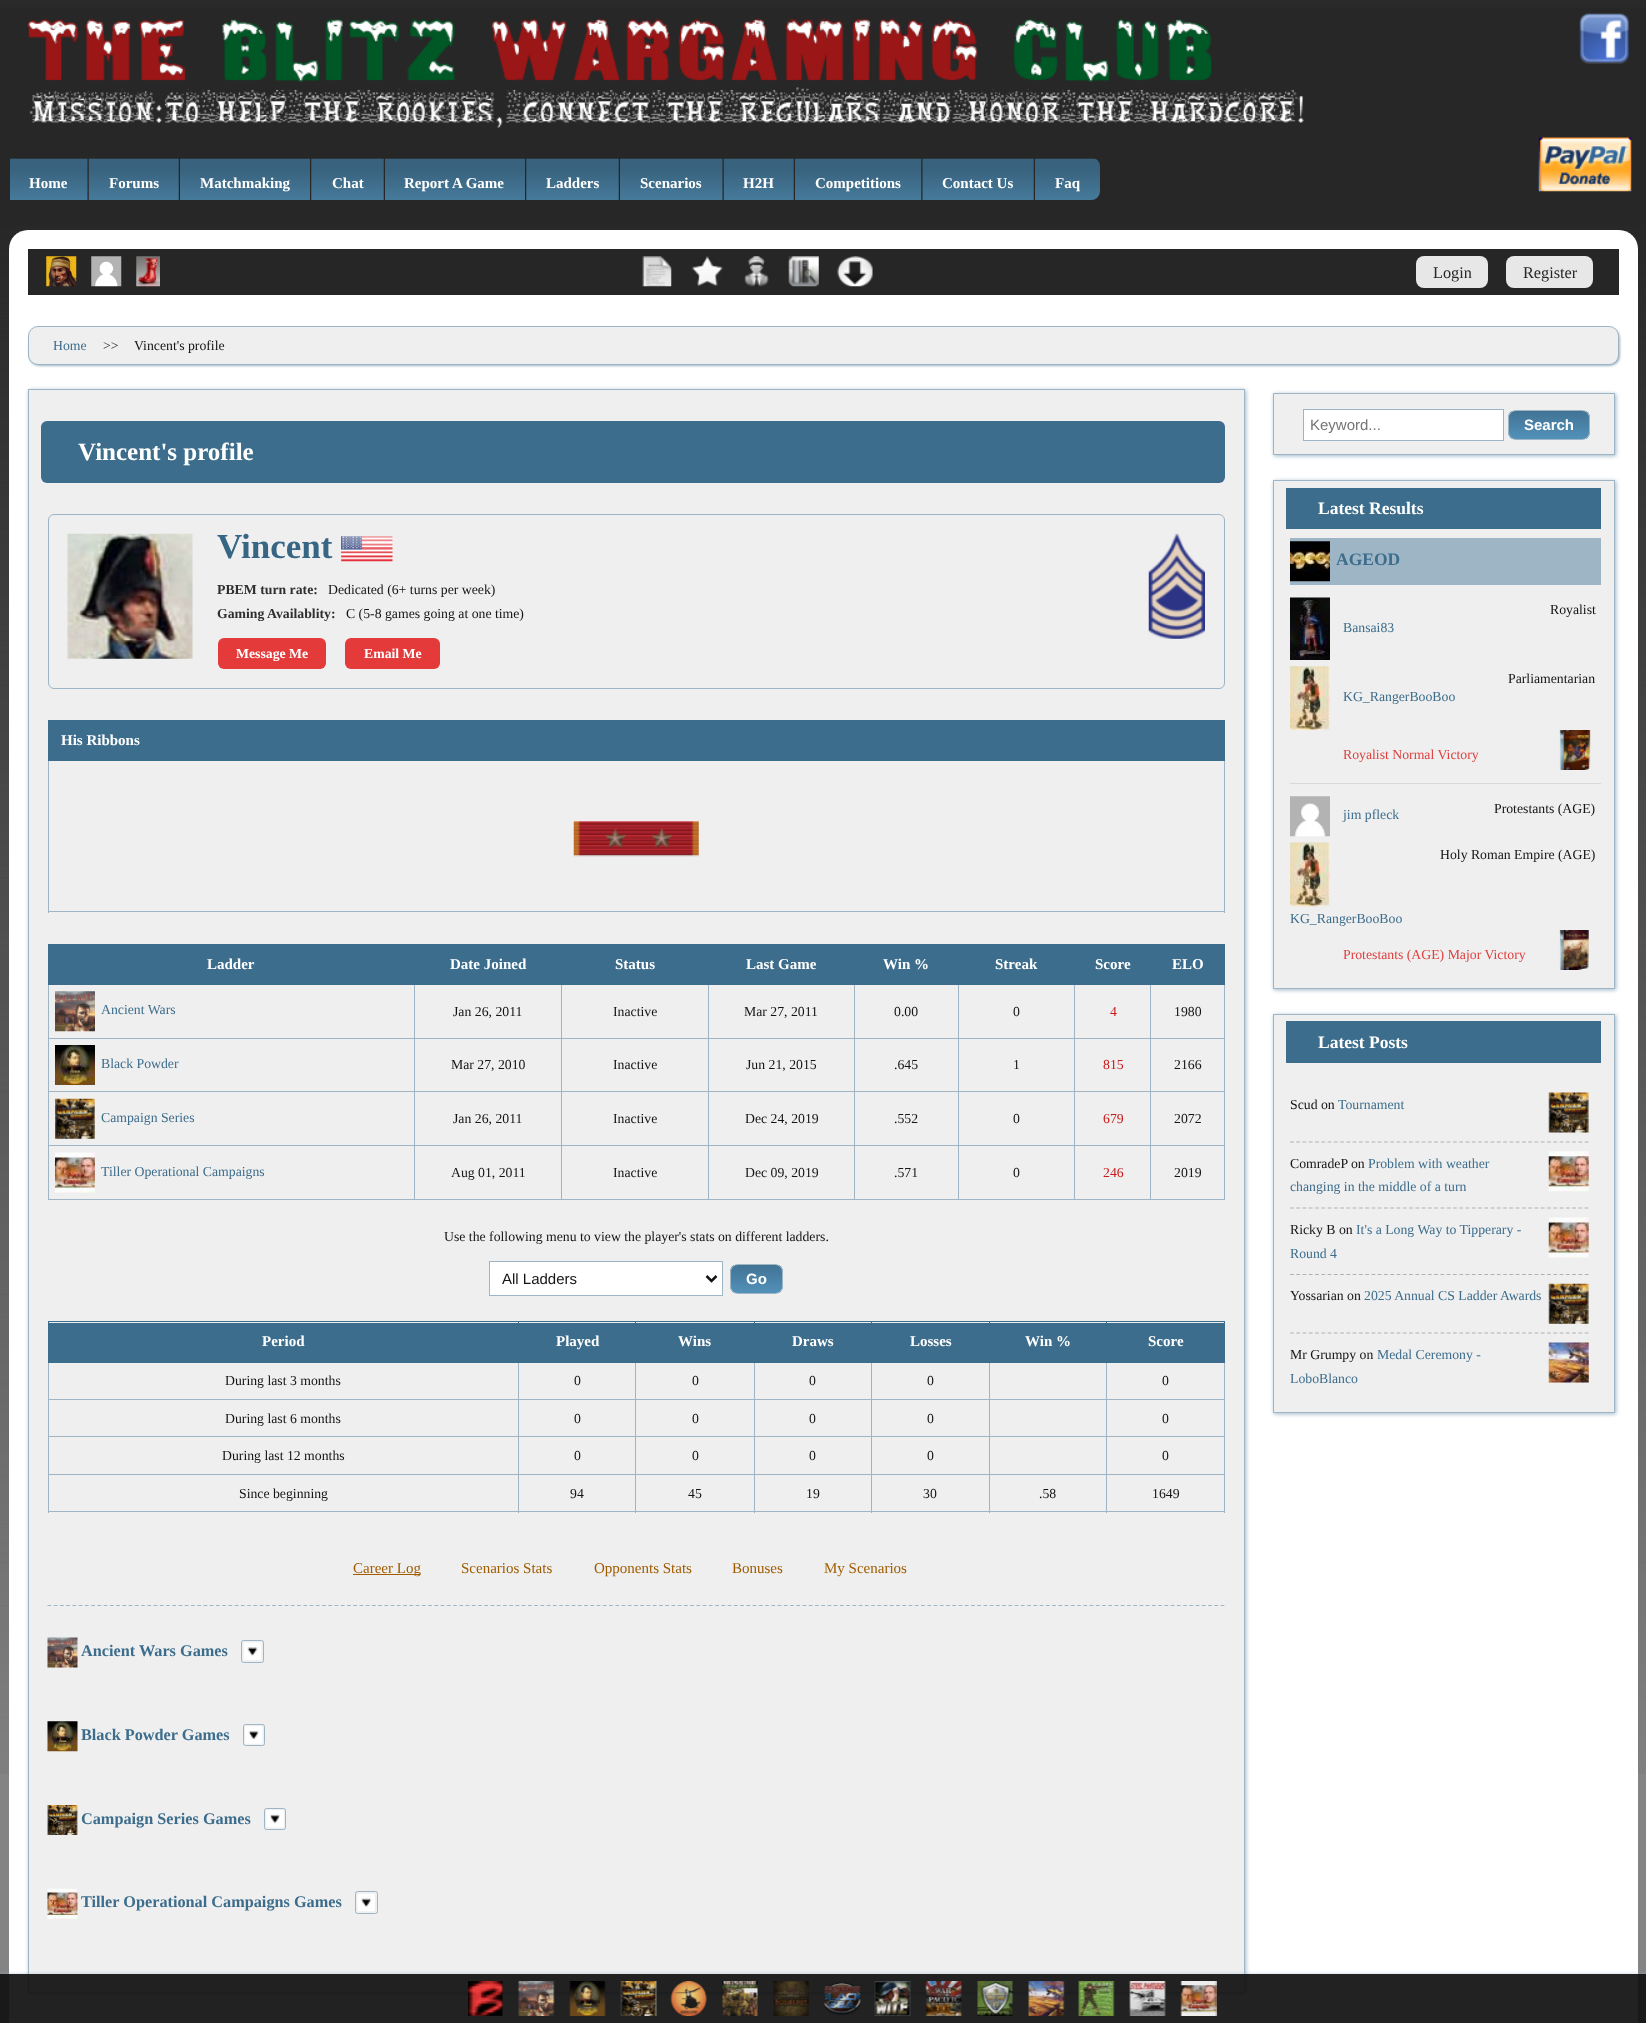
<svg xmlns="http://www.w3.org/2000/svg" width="1646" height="2023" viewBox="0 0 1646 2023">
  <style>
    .t1 { font: bold 15px Liberation Serif; fill: #fff; }
    .t2 { font: 16.25px Liberation Serif; fill: #272727; }
    .t3 { font: 13.75px Liberation Serif; fill: #3d6d8c; }
    .t4 { font: 13.75px Liberation Serif; fill: #141414; }
    .t5 { font: bold 25px Liberation Serif; fill: #fff; }
    .t6 { font: bold 35px Liberation Serif; fill: #376584; }
    .t7 { font: bold 13.75px Liberation Serif; fill: #2f2f2f; }
    .t8 { font: bold 13.75px Liberation Serif; fill: #fff; }
    .t9 { font: 13.75px Liberation Serif; fill: #c91919; }
    .t10 { font: 15px Liberation Sans; fill: #141414; }
    .t11 { font: bold 15px Liberation Sans; fill: #fff; }
    .t12 { font: 15px Liberation Serif; fill: #9f5c00; }
    .t13 { font: bold 16.25px Liberation Serif; fill: #3d6d8c; }
    .t14 { font: 15px Liberation Sans; fill: #757575; }
    .t15 { font: bold 17.5px Liberation Serif; fill: #fff; }
    .t16 { font: bold 17.5px Liberation Serif; fill: #3d6d8c; }
    .t17 { font: 13.75px Liberation Serif; fill: #de4040; }
  </style>
  <defs>
    <clipPath id="clip1"><rect x="730" y="1264" width="53" height="30" rx="8"/></clipPath>
    <linearGradient id="g1" gradientUnits="userSpaceOnUse" x1="756" y1="1265" x2="756" y2="1293"><stop offset="0" stop-color="#417394"/><stop offset="1" stop-color="#5291ba"/></linearGradient>
    <clipPath id="clip2"><rect x="1508" y="410" width="82" height="30" rx="8"/></clipPath>
    <linearGradient id="g2" gradientUnits="userSpaceOnUse" x1="1549" y1="411" x2="1549" y2="439"><stop offset="0" stop-color="#417394"/><stop offset="1" stop-color="#5291ba"/></linearGradient>
    <clipPath id="clip3"><rect x="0" y="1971" width="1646" height="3"/></clipPath>
  </defs>
  <rect width="100%" height="100%" fill="#848484"/>
  <image x="0" y="0" width="1646" height="1774" href="images/1.png"/>
  <image x="27" y="18" width="1277" height="110" href="images/2.png"/>
  <image x="1579" y="13" width="50" height="51" href="images/3.png"/>
  <image x="10" y="158" width="78" height="42" href="images/4.png"/>
  <text x="29" y="188" class="t1">Home</text>
  <image x="88" y="158" width="91" height="42" href="images/5.png"/>
  <text x="109" y="188" class="t1">Forums</text>
  <image x="180" y="158" width="130" height="42" href="images/6.png"/>
  <text x="200" y="188" class="t1">Matchmaking</text>
  <image x="311" y="158" width="73" height="42" href="images/7.png"/>
  <text x="332" y="188" class="t1">Chat</text>
  <image x="385" y="158" width="140" height="42" href="images/8.png"/>
  <text x="404" y="188" class="t1">Report A Game</text>
  <image x="526" y="158" width="93" height="42" href="images/9.png"/>
  <text x="546" y="188" class="t1">Ladders</text>
  <image x="620" y="158" width="103" height="42" href="images/10.png"/>
  <text x="640" y="188" class="t1">Scenarios</text>
  <image x="723" y="158" width="71" height="42" href="images/11.png"/>
  <text x="743" y="188" class="t1">H2H</text>
  <image x="795" y="158" width="127" height="42" href="images/12.png"/>
  <text x="815" y="188" class="t1">Competitions</text>
  <image x="922" y="158" width="112" height="42" href="images/13.png"/>
  <text x="942" y="188" class="t1">Contact Us</text>
  <image x="1035" y="158" width="65" height="42" href="images/14.png"/>
  <text x="1055" y="188" class="t1">Faq</text>
  <image x="1538" y="137" width="94" height="55" href="images/15.png"/>
  <path d="M28 230H1619C1629.5 230 1638 238.5 1638 249V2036H9V249C9 238.5 17.5 230 28 230Z" fill="#fff"/>
  <rect x="28" y="249" width="1591" height="46" fill="#262626"/>
  <image x="46" y="256" width="31" height="31" href="images/16.png"/>
  <image x="91" y="256" width="31" height="31" href="images/17.png"/>
  <image x="136" y="256" width="24" height="31" href="images/18.png"/>
  <image x="642" y="256" width="30" height="31" href="images/19.png"/>
  <image x="691" y="256" width="32" height="31" href="images/20.png"/>
  <image x="744" y="256" width="25" height="31" href="images/21.png"/>
  <image x="788" y="256" width="31" height="31" href="images/22.png"/>
  <image x="837" y="256" width="36" height="31" href="images/23.png"/>
  <rect x="1416" y="256" width="72" height="32" rx="8" fill="#e7e7e7"/>
  <text x="1433" y="278" class="t2">Login</text>
  <rect x="1506" y="256" width="87" height="32" rx="8" fill="#e7e7e7"/>
  <text x="1523" y="278" class="t2">Register</text>
  <rect x="29" y="328" width="1591" height="38" rx="10" fill="#9db5c5" filter="blur(1px)"/>
  <rect x="28.5" y="326.5" width="1590" height="38" rx="9.5" fill="#efefef" stroke="#9db5c5"/>
  <text x="53" y="350" class="t3">Home</text>
  <text x="103" y="350" class="t4">&gt;&gt;</text>
  <text x="134" y="350" class="t4">Vincent's profile</text>
  <rect x="29" y="390" width="1217" height="1604" fill="#9db5c5" filter="blur(2px)"/>
  <rect x="28.5" y="389.5" width="1216" height="1603" fill="#efefef" stroke="#9db5c5"/>
  <rect x="41" y="421" width="1184" height="62" rx="6" fill="#3d6d8c"/>
  <text x="78" y="460" class="t5">Vincent's profile</text>
  <rect x="48.5" y="514.5" width="1176" height="174" rx="5.5" fill="none" stroke="#9db5c5"/>
  <image x="67" y="533" width="126" height="126" href="images/24.png"/>
  <text x="217" y="558" class="t6">Vincent</text>
  <image x="341" y="536" width="52" height="26" href="images/25.png"/>
  <text x="217" y="594" class="t7">PBEM turn rate:</text>
  <text x="328" y="594" class="t4">Dedicated (6+ turns per week)</text>
  <text x="217" y="618" class="t7">Gaming Availablity:</text>
  <text x="346" y="618" class="t4">C (5-8 games going at one time)</text>
  <rect x="218" y="638" width="108" height="31" rx="6" fill="#e43a3a"/>
  <text x="236" y="658" class="t8">Message Me</text>
  <rect x="345" y="638" width="95" height="31" rx="6" fill="#e43a3a"/>
  <text x="364" y="658" class="t8">Email Me</text>
  <image x="1148" y="533" width="57" height="106" href="images/26.png"/>
  <rect x="48" y="721" width="1176" height="39" fill="#3d6d8c"/>
  <rect x="48" y="720" width="1177" height="1" fill="#3d6d8c"/>
  <rect x="1224" y="760" width="1" height="153" fill="#9db5c5"/>
  <rect x="1224" y="720" width="1" height="41" fill="#3d6d8c"/>
  <rect x="48" y="911" width="1177" height="1" fill="#9db5c5"/>
  <rect x="48" y="760" width="1" height="153" fill="#9db5c5"/>
  <rect x="48" y="760" width="1177" height="1" fill="#3d6d8c"/>
  <text x="61" y="745" class="t1">His Ribbons</text>
  <image x="573" y="821" width="126" height="36" href="images/27.png"/>
  <rect x="48" y="945" width="1176" height="39" fill="#3d6d8c"/>
  <text x="207" y="969" class="t1">Ladder</text>
  <text x="450" y="969" class="t1">Date Joined</text>
  <text x="615" y="969" class="t1">Status</text>
  <text x="746" y="969" class="t1">Last Game</text>
  <text x="883" y="969" class="t1">Win %</text>
  <text x="995" y="969" class="t1">Streak</text>
  <text x="1095" y="969" class="t1">Score</text>
  <rect x="48" y="944" width="1177" height="1" fill="#3d6d8c"/>
  <rect x="1150" y="1038" width="75" height="1" fill="#9db5c5"/>
  <rect x="1150" y="1091" width="75" height="1" fill="#9db5c5"/>
  <rect x="1150" y="1145" width="75" height="1" fill="#9db5c5"/>
  <rect x="1224" y="1145" width="1" height="55" fill="#9db5c5"/>
  <rect x="1224" y="1091" width="1" height="55" fill="#9db5c5"/>
  <rect x="1224" y="984" width="1" height="109" fill="#9db5c5"/>
  <rect x="1224" y="944" width="1" height="41" fill="#3d6d8c"/>
  <rect x="1150" y="1199" width="75" height="1" fill="#9db5c5"/>
  <rect x="1150" y="1145" width="1" height="55" fill="#9db5c5"/>
  <rect x="1074" y="1145" width="77" height="1" fill="#9db5c5"/>
  <rect x="1150" y="1091" width="1" height="55" fill="#9db5c5"/>
  <rect x="1074" y="1091" width="77" height="1" fill="#9db5c5"/>
  <rect x="1150" y="1038" width="1" height="55" fill="#9db5c5"/>
  <rect x="1074" y="1038" width="77" height="1" fill="#9db5c5"/>
  <rect x="1074" y="1199" width="77" height="1" fill="#9db5c5"/>
  <rect x="1074" y="1145" width="1" height="55" fill="#9db5c5"/>
  <rect x="958" y="1145" width="117" height="1" fill="#9db5c5"/>
  <rect x="1074" y="1091" width="1" height="55" fill="#9db5c5"/>
  <rect x="958" y="1091" width="117" height="1" fill="#9db5c5"/>
  <rect x="1074" y="1038" width="1" height="55" fill="#9db5c5"/>
  <rect x="958" y="1038" width="117" height="1" fill="#9db5c5"/>
  <rect x="958" y="1199" width="117" height="1" fill="#9db5c5"/>
  <rect x="958" y="1145" width="1" height="55" fill="#9db5c5"/>
  <rect x="854" y="1145" width="105" height="1" fill="#9db5c5"/>
  <rect x="958" y="1091" width="1" height="55" fill="#9db5c5"/>
  <rect x="854" y="1091" width="105" height="1" fill="#9db5c5"/>
  <rect x="958" y="1038" width="1" height="55" fill="#9db5c5"/>
  <rect x="854" y="1038" width="105" height="1" fill="#9db5c5"/>
  <rect x="854" y="1199" width="105" height="1" fill="#9db5c5"/>
  <rect x="854" y="1145" width="1" height="55" fill="#9db5c5"/>
  <rect x="708" y="1145" width="147" height="1" fill="#9db5c5"/>
  <rect x="854" y="1091" width="1" height="55" fill="#9db5c5"/>
  <rect x="708" y="1091" width="147" height="1" fill="#9db5c5"/>
  <rect x="854" y="1038" width="1" height="55" fill="#9db5c5"/>
  <rect x="708" y="1038" width="147" height="1" fill="#9db5c5"/>
  <rect x="708" y="1199" width="147" height="1" fill="#9db5c5"/>
  <rect x="708" y="1145" width="1" height="55" fill="#9db5c5"/>
  <rect x="561" y="1145" width="148" height="1" fill="#9db5c5"/>
  <rect x="708" y="1091" width="1" height="55" fill="#9db5c5"/>
  <rect x="561" y="1091" width="148" height="1" fill="#9db5c5"/>
  <rect x="708" y="1038" width="1" height="55" fill="#9db5c5"/>
  <rect x="561" y="1038" width="148" height="1" fill="#9db5c5"/>
  <rect x="561" y="1199" width="148" height="1" fill="#9db5c5"/>
  <rect x="561" y="1145" width="1" height="55" fill="#9db5c5"/>
  <rect x="414" y="1145" width="149" height="1" fill="#9db5c5"/>
  <rect x="561" y="1091" width="1" height="55" fill="#9db5c5"/>
  <rect x="414" y="1091" width="149" height="1" fill="#9db5c5"/>
  <rect x="561" y="1038" width="1" height="55" fill="#9db5c5"/>
  <rect x="414" y="1038" width="149" height="1" fill="#9db5c5"/>
  <rect x="414" y="1199" width="149" height="1" fill="#9db5c5"/>
  <rect x="414" y="1145" width="1" height="55" fill="#9db5c5"/>
  <rect x="48" y="1145" width="367" height="1" fill="#9db5c5"/>
  <rect x="414" y="1091" width="1" height="55" fill="#9db5c5"/>
  <rect x="48" y="1091" width="367" height="1" fill="#9db5c5"/>
  <rect x="414" y="1038" width="1" height="55" fill="#9db5c5"/>
  <rect x="48" y="1038" width="367" height="1" fill="#9db5c5"/>
  <rect x="414" y="984" width="1" height="55" fill="#9db5c5"/>
  <rect x="561" y="984" width="1" height="55" fill="#9db5c5"/>
  <rect x="708" y="984" width="1" height="55" fill="#9db5c5"/>
  <rect x="854" y="984" width="1" height="55" fill="#9db5c5"/>
  <rect x="958" y="984" width="1" height="55" fill="#9db5c5"/>
  <rect x="1074" y="984" width="1" height="55" fill="#9db5c5"/>
  <rect x="1150" y="984" width="1" height="55" fill="#9db5c5"/>
  <rect x="48" y="1199" width="367" height="1" fill="#9db5c5"/>
  <rect x="48" y="1145" width="1" height="55" fill="#9db5c5"/>
  <rect x="48" y="1091" width="1" height="55" fill="#9db5c5"/>
  <rect x="48" y="984" width="1" height="109" fill="#9db5c5"/>
  <rect x="48" y="984" width="1177" height="1" fill="#3d6d8c"/>
  <text x="1172" y="969" class="t1">ELO</text>
  <image x="55" y="991" width="40" height="41" href="images/28.png"/>
  <text x="101" y="1014" class="t3">Ancient Wars</text>
  <text x="453" y="1016" class="t4">Jan 26, 2011</text>
  <text x="613" y="1016" class="t4">Inactive</text>
  <text x="744" y="1016" class="t4">Mar 27, 2011</text>
  <text x="894" y="1016" class="t4">0.00</text>
  <text x="1013" y="1016" class="t4">0</text>
  <text x="1110" y="1016" class="t9">4</text>
  <text x="1174" y="1016" class="t4">1980</text>
  <image x="55" y="1045" width="40" height="40" href="images/29.png"/>
  <text x="101" y="1068" class="t3">Black Powder</text>
  <text x="451" y="1069" class="t4">Mar 27, 2010</text>
  <text x="613" y="1069" class="t4">Inactive</text>
  <text x="746" y="1069" class="t4">Jun 21, 2015</text>
  <text x="894" y="1069" class="t4">.645</text>
  <text x="1013" y="1069" class="t4">1</text>
  <text x="1103" y="1069" class="t9">815</text>
  <text x="1174" y="1069" class="t4">2166</text>
  <image x="55" y="1098" width="40" height="41" href="images/30.png"/>
  <text x="101" y="1122" class="t3">Campaign Series</text>
  <text x="453" y="1123" class="t4">Jan 26, 2011</text>
  <text x="613" y="1123" class="t4">Inactive</text>
  <text x="745" y="1123" class="t4">Dec 24, 2019</text>
  <text x="894" y="1123" class="t4">.552</text>
  <text x="1013" y="1123" class="t4">0</text>
  <text x="1103" y="1123" class="t9">679</text>
  <text x="1174" y="1123" class="t4">2072</text>
  <image x="55" y="1152" width="40" height="41" href="images/31.png"/>
  <text x="101" y="1176" class="t3">Tiller Operational Campaigns</text>
  <text x="451" y="1177" class="t4">Aug 01, 2011</text>
  <text x="613" y="1177" class="t4">Inactive</text>
  <text x="745" y="1177" class="t4">Dec 09, 2019</text>
  <text x="894" y="1177" class="t4">.571</text>
  <text x="1013" y="1177" class="t4">0</text>
  <text x="1103" y="1177" class="t9">246</text>
  <text x="1174" y="1177" class="t4">2019</text>
  <text x="444" y="1241" class="t4">Use the following menu to view the player's stats on different ladders.</text>
  <rect x="489.5" y="1261.5" width="233" height="34" fill="#fff" stroke="#9db5c5"/>
  <path d="M706.5 1276L711.5 1281L716.5 1276" fill="none" stroke="#141414" stroke-width="2.5"/>
  <text x="502" y="1284" class="t10">All Ladders</text>
  <g clip-path="url(#clip1)">
    <rect x="730" y="1265" width="53" height="28" fill="url(#g1)"/>
  </g>
  <rect x="730.5" y="1264.5" width="52" height="29" rx="7.5" fill="none" stroke="#9db5c5"/>
  <text x="746" y="1284" class="t11">Go</text>
  <rect x="49" y="1323" width="469" height="40" fill="#3d6d8c"/>
  <rect x="1106" y="1321" width="119" height="1" fill="#3d6d8c"/>
  <rect x="990" y="1323" width="234" height="40" fill="#3d6d8c"/>
  <rect x="1106" y="1399" width="119" height="1" fill="#9db5c5"/>
  <rect x="1106" y="1436" width="119" height="1" fill="#9db5c5"/>
  <rect x="1106" y="1474" width="119" height="1" fill="#9db5c5"/>
  <rect x="1224" y="1474" width="1" height="39" fill="#9db5c5"/>
  <rect x="1106" y="1511" width="119" height="1" fill="#9db5c5"/>
  <rect x="1106" y="1474" width="1" height="39" fill="#9db5c5"/>
  <rect x="989" y="1474" width="119" height="1" fill="#9db5c5"/>
  <rect x="1106" y="1436" width="1" height="39" fill="#9db5c5"/>
  <rect x="989" y="1436" width="119" height="1" fill="#9db5c5"/>
  <rect x="1106" y="1399" width="1" height="39" fill="#9db5c5"/>
  <rect x="989" y="1399" width="119" height="1" fill="#9db5c5"/>
  <rect x="1106" y="1361" width="1" height="39" fill="#9db5c5"/>
  <rect x="1106" y="1321" width="1" height="42" fill="#3d6d8c"/>
  <rect x="989" y="1321" width="119" height="1" fill="#3d6d8c"/>
  <rect x="989" y="1511" width="119" height="1" fill="#9db5c5"/>
  <rect x="989" y="1474" width="1" height="39" fill="#9db5c5"/>
  <rect x="871" y="1474" width="119" height="1" fill="#9db5c5"/>
  <rect x="989" y="1436" width="1" height="39" fill="#9db5c5"/>
  <rect x="871" y="1436" width="119" height="1" fill="#9db5c5"/>
  <rect x="989" y="1399" width="1" height="39" fill="#9db5c5"/>
  <rect x="871" y="1399" width="119" height="1" fill="#9db5c5"/>
  <rect x="989" y="1361" width="1" height="39" fill="#9db5c5"/>
  <rect x="989" y="1321" width="1" height="42" fill="#3d6d8c"/>
  <rect x="871" y="1321" width="119" height="1" fill="#3d6d8c"/>
  <rect x="871" y="1511" width="119" height="1" fill="#9db5c5"/>
  <rect x="871" y="1474" width="1" height="39" fill="#9db5c5"/>
  <rect x="754" y="1474" width="119" height="1" fill="#9db5c5"/>
  <rect x="871" y="1436" width="1" height="39" fill="#9db5c5"/>
  <rect x="754" y="1436" width="119" height="1" fill="#9db5c5"/>
  <rect x="871" y="1399" width="1" height="39" fill="#9db5c5"/>
  <rect x="754" y="1399" width="119" height="1" fill="#9db5c5"/>
  <rect x="871" y="1361" width="1" height="39" fill="#9db5c5"/>
  <rect x="871" y="1321" width="1" height="42" fill="#3d6d8c"/>
  <rect x="754" y="1321" width="119" height="1" fill="#3d6d8c"/>
  <rect x="754" y="1511" width="119" height="1" fill="#9db5c5"/>
  <rect x="754" y="1474" width="1" height="39" fill="#9db5c5"/>
  <rect x="635" y="1474" width="120" height="1" fill="#9db5c5"/>
  <rect x="754" y="1436" width="1" height="39" fill="#9db5c5"/>
  <rect x="635" y="1436" width="120" height="1" fill="#9db5c5"/>
  <rect x="754" y="1399" width="1" height="39" fill="#9db5c5"/>
  <rect x="635" y="1399" width="120" height="1" fill="#9db5c5"/>
  <rect x="754" y="1361" width="1" height="39" fill="#9db5c5"/>
  <rect x="754" y="1321" width="1" height="42" fill="#3d6d8c"/>
  <rect x="635" y="1321" width="120" height="1" fill="#3d6d8c"/>
  <rect x="635" y="1511" width="120" height="1" fill="#9db5c5"/>
  <rect x="635" y="1474" width="1" height="39" fill="#9db5c5"/>
  <rect x="518" y="1474" width="118" height="1" fill="#9db5c5"/>
  <rect x="635" y="1436" width="1" height="39" fill="#9db5c5"/>
  <rect x="518" y="1436" width="118" height="1" fill="#9db5c5"/>
  <rect x="635" y="1399" width="1" height="39" fill="#9db5c5"/>
  <rect x="518" y="1399" width="118" height="1" fill="#9db5c5"/>
  <rect x="635" y="1361" width="1" height="39" fill="#9db5c5"/>
  <rect x="635" y="1321" width="1" height="42" fill="#3d6d8c"/>
  <rect x="518" y="1321" width="118" height="1" fill="#3d6d8c"/>
  <rect x="518" y="1511" width="118" height="1" fill="#9db5c5"/>
  <rect x="518" y="1474" width="1" height="39" fill="#9db5c5"/>
  <rect x="48" y="1474" width="471" height="1" fill="#9db5c5"/>
  <rect x="518" y="1436" width="1" height="39" fill="#9db5c5"/>
  <rect x="48" y="1436" width="471" height="1" fill="#9db5c5"/>
  <rect x="518" y="1399" width="1" height="39" fill="#9db5c5"/>
  <rect x="48" y="1399" width="471" height="1" fill="#9db5c5"/>
  <rect x="518" y="1361" width="1" height="39" fill="#9db5c5"/>
  <rect x="518" y="1321" width="1" height="42" fill="#3d6d8c"/>
  <rect x="48" y="1321" width="471" height="1" fill="#3d6d8c"/>
  <rect x="48" y="1511" width="471" height="1" fill="#9db5c5"/>
  <rect x="48" y="1474" width="1" height="39" fill="#9db5c5"/>
  <rect x="48" y="1436" width="1" height="39" fill="#9db5c5"/>
  <rect x="48" y="1361" width="1" height="77" fill="#9db5c5"/>
  <rect x="48" y="1321" width="1" height="42" fill="#3d6d8c"/>
  <text x="262" y="1346" class="t1">Period</text>
  <rect x="519" y="1323" width="116" height="40" fill="#3d6d8c"/>
  <text x="556" y="1346" class="t1">Played</text>
  <rect x="636" y="1323" width="118" height="40" fill="#3d6d8c"/>
  <text x="678" y="1346" class="t1">Wins</text>
  <rect x="755" y="1323" width="116" height="40" fill="#3d6d8c"/>
  <text x="792" y="1346" class="t1">Draws</text>
  <rect x="872" y="1323" width="117" height="40" fill="#3d6d8c"/>
  <text x="910" y="1346" class="t1">Losses</text>
  <text x="1025" y="1346" class="t1">Win %</text>
  <rect x="1224" y="1436" width="1" height="39" fill="#9db5c5"/>
  <rect x="1224" y="1361" width="1" height="77" fill="#9db5c5"/>
  <rect x="1224" y="1321" width="1" height="42" fill="#3d6d8c"/>
  <text x="1148" y="1346" class="t1">Score</text>
  <text x="225" y="1385" class="t4">During last 3 months</text>
  <text x="574" y="1385" class="t4">0</text>
  <text x="692" y="1385" class="t4">0</text>
  <text x="809" y="1385" class="t4">0</text>
  <text x="927" y="1385" class="t4">0</text>
  <text x="1162" y="1385" class="t4">0</text>
  <text x="225" y="1423" class="t4">During last 6 months</text>
  <text x="574" y="1423" class="t4">0</text>
  <text x="692" y="1423" class="t4">0</text>
  <text x="809" y="1423" class="t4">0</text>
  <text x="927" y="1423" class="t4">0</text>
  <text x="1162" y="1423" class="t4">0</text>
  <text x="222" y="1460" class="t4">During last 12 months</text>
  <text x="574" y="1460" class="t4">0</text>
  <text x="692" y="1460" class="t4">0</text>
  <text x="809" y="1460" class="t4">0</text>
  <text x="927" y="1460" class="t4">0</text>
  <text x="1162" y="1460" class="t4">0</text>
  <text x="239" y="1498" class="t4">Since beginning</text>
  <text x="570" y="1498" class="t4">94</text>
  <text x="688" y="1498" class="t4">45</text>
  <text x="806" y="1498" class="t4">19</text>
  <text x="923" y="1498" class="t4">30</text>
  <text x="1039" y="1498" class="t4">.58</text>
  <text x="1152" y="1498" class="t4">1649</text>
  <path d="M47.5 1605.5H1225" fill="none" stroke="#9db5c5" stroke-width="1.2" stroke-dasharray="3.75 2.49"/>
  <rect x="353" y="1574" width="67" height="1" fill="#9f5c00"/>
  <text x="353" y="1573" class="t12">Career Log</text>
  <text x="461" y="1573" class="t12">Scenarios Stats</text>
  <text x="594" y="1573" class="t12">Opponents Stats</text>
  <text x="732" y="1573" class="t12">Bonuses</text>
  <text x="824" y="1573" class="t12">My Scenarios</text>
  <image x="47" y="1637" width="31" height="31" href="images/32.png"/>
  <text x="81" y="1656" class="t13">Ancient Wars Games</text>
  <image x="243" y="1642" width="19" height="18" href="images/33.png"/>
  <rect x="241.5" y="1640.5" width="22" height="22" rx="2" fill="none" stroke="#9db5c5"/>
  <image x="47" y="1721" width="31" height="31" href="images/34.png"/>
  <text x="81" y="1740" class="t13">Black Powder Games</text>
  <image x="245" y="1726" width="18" height="18" href="images/35.png"/>
  <rect x="243.5" y="1724.5" width="21" height="21" rx="2" fill="none" stroke="#9db5c5"/>
  <image x="47" y="1805" width="31" height="30" href="images/36.png"/>
  <text x="81" y="1824" class="t13">Campaign Series Games</text>
  <image x="266" y="1810" width="18" height="18" href="images/37.png"/>
  <rect x="264.5" y="1808.5" width="21" height="21" rx="2" fill="none" stroke="#9db5c5"/>
  <image x="47" y="1888" width="31" height="31" href="images/38.png"/>
  <text x="81" y="1907" class="t13">Tiller Operational Campaigns Games</text>
  <image x="357" y="1893" width="18" height="19" href="images/39.png"/>
  <rect x="355.5" y="1891.5" width="22" height="22" rx="2" fill="none" stroke="#9db5c5"/>
  <rect x="1274" y="394" width="342" height="62" fill="#9db5c5" filter="blur(2px)"/>
  <rect x="1273.5" y="393.5" width="341" height="61" fill="#efefef" stroke="#9db5c5"/>
  <rect x="1303.5" y="409.5" width="200" height="31" fill="#fff" stroke="#9db5c5"/>
  <text x="1310" y="430" class="t14">Keyword...</text>
  <g clip-path="url(#clip2)">
    <rect x="1508" y="411" width="82" height="28" fill="url(#g2)"/>
  </g>
  <rect x="1508.5" y="410.5" width="81" height="29" rx="7.5" fill="none" stroke="#9db5c5"/>
  <text x="1524" y="430" class="t11">Search</text>
  <rect x="1274" y="481" width="342" height="509" fill="#9db5c5" filter="blur(2px)"/>
  <rect x="1273.5" y="480.5" width="341" height="508" fill="#efefef" stroke="#9db5c5"/>
  <rect x="1286" y="488" width="315" height="41" fill="#3d6d8c"/>
  <text x="1318" y="514" class="t15">Latest Results</text>
  <rect x="1290" y="538" width="311" height="47" fill="#9db5c5"/>
  <image x="1290" y="541" width="40" height="41" href="images/40.png"/>
  <text x="1336" y="565" class="t16">AGEOD</text>
  <rect x="1290" y="783" width="311" height="1" fill="#d8d8d8"/>
  <image x="1290" y="597" width="40" height="63" href="images/41.png"/>
  <text x="1550" y="614" class="t4">Royalist</text>
  <text x="1343" y="632" class="t3">Bansai83</text>
  <image x="1290" y="666" width="40" height="64" href="images/42.png"/>
  <text x="1508" y="683" class="t4">Parliamentarian</text>
  <text x="1343" y="701" class="t3">KG_RangerBooBoo</text>
  <text x="1343" y="759" class="t17">Royalist Normal Victory</text>
  <image x="1559" y="730" width="32" height="40" href="images/43.png"/>
  <image x="1290" y="796" width="40" height="41" href="images/44.png"/>
  <text x="1343" y="819" class="t3">jim pfleck</text>
  <text x="1494" y="813" class="t4">Protestants (AGE)</text>
  <image x="1290" y="842" width="40" height="65" href="images/45.png"/>
  <text x="1440" y="859" class="t4">Holy Roman Empire (AGE)</text>
  <text x="1290" y="923" class="t3">KG_RangerBooBoo</text>
  <text x="1343" y="959" class="t17">Protestants (AGE) Major Victory</text>
  <image x="1559" y="930" width="30" height="40" href="images/46.png"/>
  <rect x="1274" y="1015" width="342" height="399" fill="#9db5c5" filter="blur(2px)"/>
  <rect x="1273.5" y="1014.5" width="341" height="398" fill="#efefef" stroke="#9db5c5"/>
  <rect x="1286" y="1021" width="315" height="42" fill="#3d6d8c"/>
  <text x="1318" y="1048" class="t15">Latest Posts</text>
  <path d="M1290 1142H1589" fill="none" stroke="#b1b1b1" stroke-width="1.2" stroke-dasharray="3.75 2.52"/>
  <text x="1290" y="1109" class="t4">Scud on</text>
  <text x="1338" y="1109" class="t3">Tournament</text>
  <image x="1548" y="1092" width="41" height="41" href="images/47.png"/>
  <path d="M1290 1208H1589" fill="none" stroke="#b1b1b1" stroke-width="1.2" stroke-dasharray="3.75 2.52"/>
  <text x="1290" y="1168" class="t4">ComradeP on</text>
  <text x="1368" y="1168" class="t3">Problem with weather</text>
  <image x="1548" y="1151" width="41" height="41" href="images/48.png"/>
  <text x="1290" y="1191" class="t3">changing in the middle of a turn</text>
  <path d="M1290 1274.5H1589" fill="none" stroke="#b1b1b1" stroke-width="1.2" stroke-dasharray="3.75 2.52"/>
  <text x="1290" y="1234" class="t4">Ricky B on</text>
  <text x="1356" y="1234" class="t3">It's a Long Way to Tipperary -</text>
  <image x="1548" y="1217" width="41" height="41" href="images/49.png"/>
  <text x="1290" y="1258" class="t3">Round 4</text>
  <path d="M1290 1333H1589" fill="none" stroke="#b1b1b1" stroke-width="1.2" stroke-dasharray="3.75 2.52"/>
  <text x="1290" y="1300" class="t4">Yossarian on</text>
  <text x="1364" y="1300" class="t3">2025 Annual CS Ladder Awards</text>
  <image x="1548" y="1283" width="41" height="41" href="images/50.png"/>
  <text x="1290" y="1359" class="t4">Mr Grumpy on</text>
  <text x="1377" y="1359" class="t3">Medal Ceremony -</text>
  <image x="1548" y="1342" width="41" height="41" href="images/51.png"/>
  <text x="1290" y="1383" class="t3">LoboBlanco</text>
  <g clip-path="url(#clip3)">
    <rect x="1" y="1975" width="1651" height="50" fill="#9db5c5ed" filter="blur(2px)"/>
  </g>
  <rect x="0" y="1974" width="1646" height="49" fill="#111111ed"/>
  <image x="468" y="1981" width="35" height="35" href="images/52.png"/>
  <image x="518" y="1981" width="37" height="35" href="images/53.png"/>
  <image x="569" y="1981" width="37" height="35" href="images/54.png"/>
  <image x="620" y="1981" width="37" height="35" href="images/55.png"/>
  <image x="670" y="1981" width="37" height="35" href="images/56.png"/>
  <image x="722" y="1981" width="36" height="35" href="images/57.png"/>
  <image x="773" y="1981" width="36" height="35" href="images/58.png"/>
  <image x="824" y="1982" width="37" height="33" href="images/59.png"/>
  <image x="874" y="1981" width="37" height="35" href="images/60.png"/>
  <image x="925" y="1981" width="37" height="35" href="images/61.png"/>
  <image x="977" y="1981" width="36" height="35" href="images/62.png"/>
  <image x="1028" y="1981" width="37" height="35" href="images/63.png"/>
  <image x="1078" y="1981" width="37" height="35" href="images/64.png"/>
  <image x="1129" y="1981" width="37" height="35" href="images/65.png"/>
  <image x="1180" y="1981" width="37" height="35" href="images/66.png"/>
</svg>
